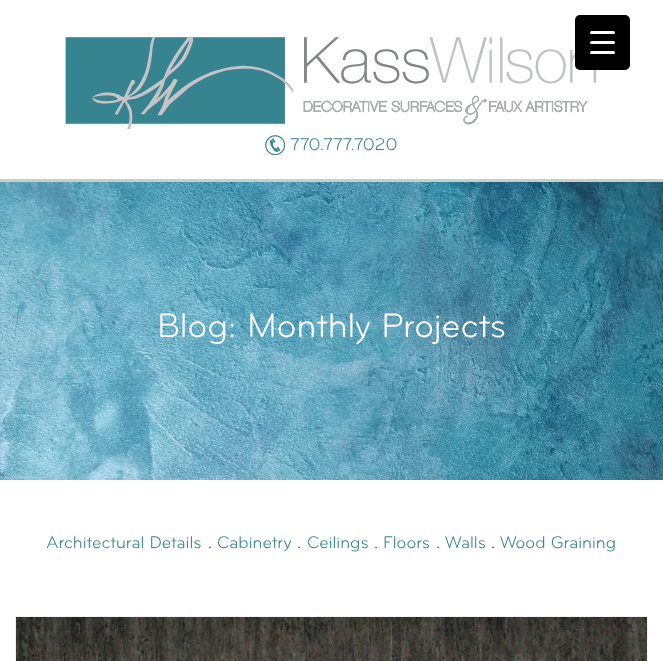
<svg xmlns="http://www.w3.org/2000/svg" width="663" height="661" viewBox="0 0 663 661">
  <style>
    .t1 { font: 17.5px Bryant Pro; fill: #368490; }
    .t2 { font: 35.25px Bryant Pro; fill: #fff; }
    .t3 { font: 17.5px Bryant Pro; fill: #333; }
  </style>
  <rect width="100%" height="100%" fill="#fff"/>
  <image x="65" y="37" width="532" height="92" href="images/1.png"/>
  <rect x="575" y="15" width="55" height="55" rx="5" fill="#000"/>
  <rect x="590" y="41" width="25" height="3" rx="1.5" fill="#fff"/>
  <rect x="590" y="31" width="25" height="3" rx="1.5" fill="#fff"/>
  <rect x="590" y="51" width="25" height="3" rx="1.5" fill="#fff"/>
  <rect x="0" y="179" width="663" height="3" fill="#ccc"/>
  <image x="265" y="135" width="20" height="20" href="images/2.png"/>
  <text x="290" y="150" class="t1">770.777.7020</text>
  <image x="0" y="182" width="663" height="298" href="images/3.png"/>
  <text x="157" y="337" class="t2">Blog: Monthly Projects</text>
  <text x="46" y="548" class="t1">Architectural Details</text>
  <text x="208" y="548" class="t3">.</text>
  <text x="217" y="548" class="t1">Cabinetry</text>
  <text x="297" y="548" class="t3">.</text>
  <text x="307" y="548" class="t1">Ceilings</text>
  <text x="374" y="548" class="t3">.</text>
  <text x="383" y="548" class="t1">Floors</text>
  <text x="436" y="548" class="t3">.</text>
  <text x="445" y="548" class="t1">Walls</text>
  <text x="491" y="548" class="t3">.</text>
  <text x="500" y="548" class="t1">Wood Graining</text>
  <rect x="15.5" y="616.5" width="632" height="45" fill="none" stroke="#f2f2f2"/>
  <image x="16" y="617" width="631" height="44" href="images/4.png"/>
</svg>
